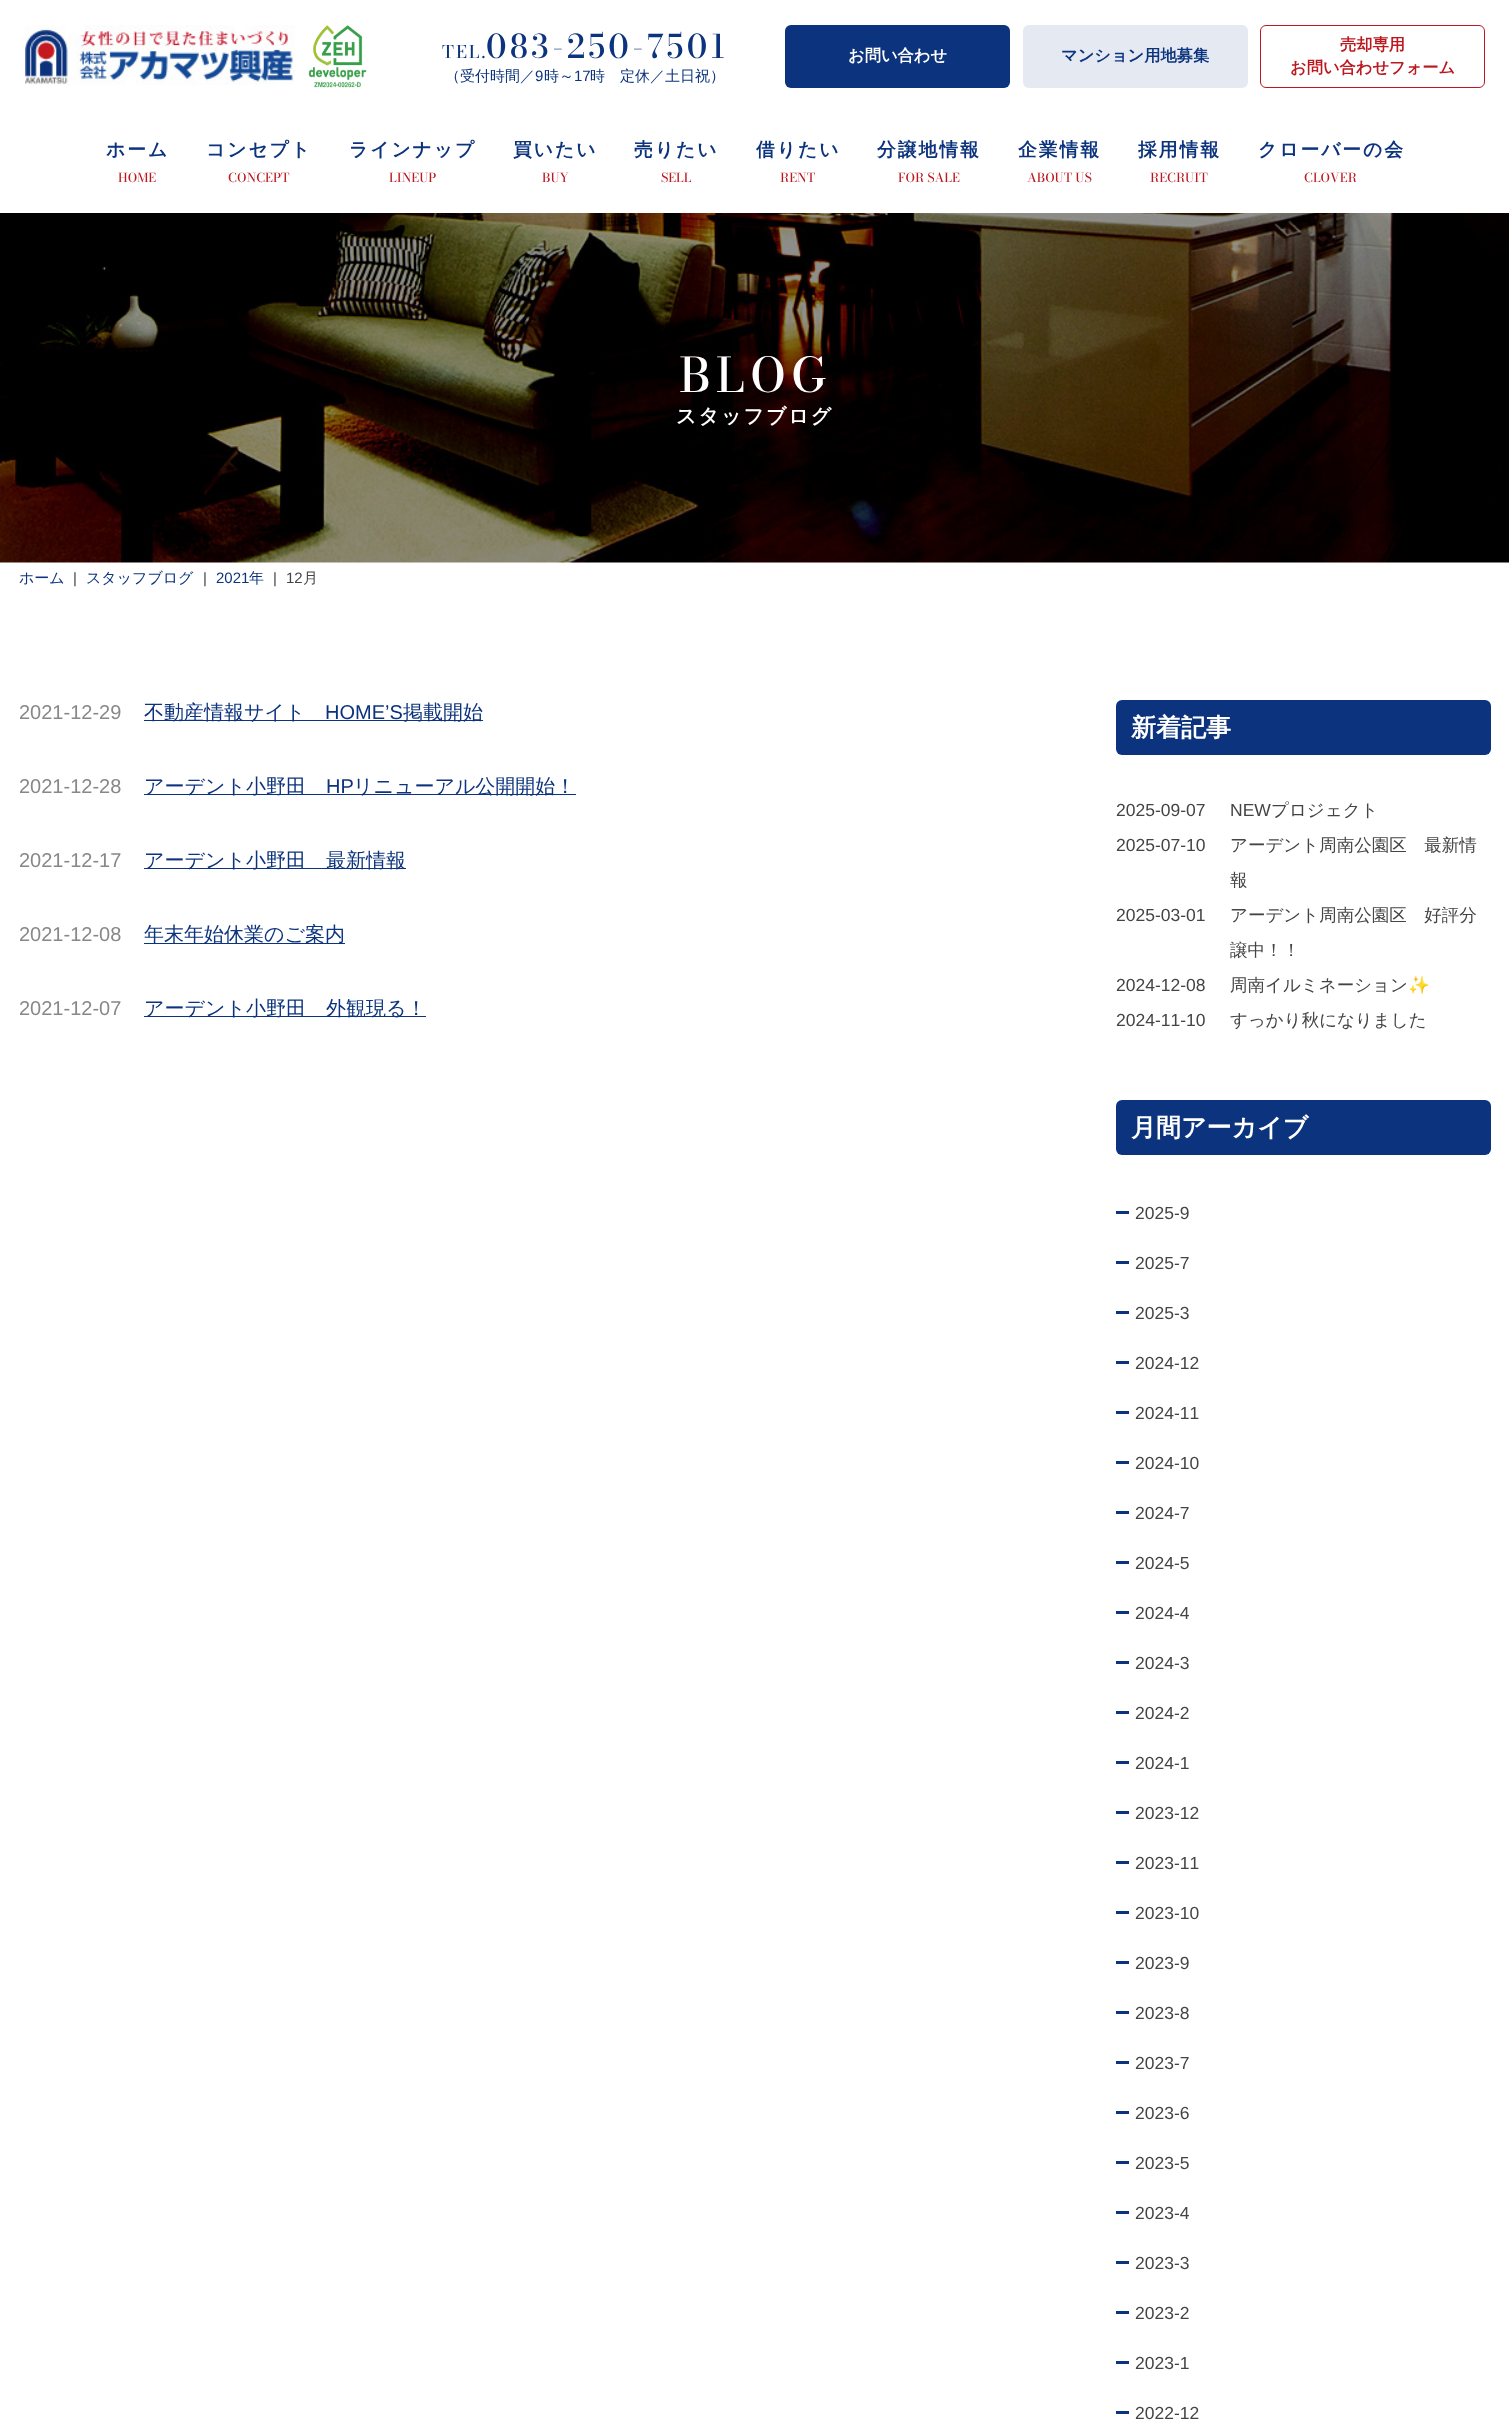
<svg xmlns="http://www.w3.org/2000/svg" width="1509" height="2434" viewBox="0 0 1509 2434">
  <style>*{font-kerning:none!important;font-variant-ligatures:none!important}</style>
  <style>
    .t1 { font: 500 17.5px Bodoni Moda; letter-spacing: 2px; fill: #0c337d; }
    .t2 { font: 500 32.5px Bodoni Moda; letter-spacing: 3.25px; fill: #0c337d; }
    .t3 { font: 500 15px WenQuanYi Zen Hei; fill: #0c337d; }
    .t4 { font: 15px Liberation Sans; fill: #0c337d; }
    .t5 { font: bold 16.25px WenQuanYi Zen Hei; fill: #fff; }
    .t6 { font: bold 16.25px WenQuanYi Zen Hei; fill: #0c337d; }
    .t7 { font: bold 16.25px WenQuanYi Zen Hei; fill: #bb1920; }
    .t8 { font: bold 18.75px WenQuanYi Zen Hei; letter-spacing: 2px; fill: #0c337d; }
    .t9 { font: 500 12.5px Bodoni Moda; fill: #bb1920; }
    .t10 { font: 500 47.5px Bodoni Moda; letter-spacing: 5px; fill: #fff; }
    .t11 { font: bold 20px WenQuanYi Zen Hei; letter-spacing: 2px; fill: #fff; }
    .t12 { font: 15px Liberation Sans; fill: #444; }
    .t13 { font: 500 15px WenQuanYi Zen Hei; fill: #444; }
    .t14 { font: 20px Liberation Sans; fill: #888; }
    .t15 { font: 500 20px WenQuanYi Zen Hei; fill: #0c337d; }
    .t16 { font: 20px Liberation Sans; fill: #0c337d; }
    .t17 { font: bold 25px WenQuanYi Zen Hei; fill: #fff; }
    .t18 { font: 17.5px Liberation Sans; fill: #444; }
    .t19 { font: 500 17.5px WenQuanYi Zen Hei; fill: #444; }
    .t20 { font: 17.5px Noto Color Emoji; fill: #444; }
  </style>
  <rect width="100%" height="100%" fill="#fff"/>
  <image x="25" y="25" width="270" height="60" href="images/1.png"/>
  <image x="308" y="25" width="59" height="63" href="images/2.png"/>
  <text x="442" y="58" class="t1">TEL.</text>
  <text x="486" y="58" class="t2">083-250-7501</text>
  <text x="445" y="81" class="t3">（受付時間／</text>
  <text x="535" y="81" class="t4">9</text>
  <text x="544" y="81" class="t3">時～</text>
  <text x="574" y="81" class="t4">17</text>
  <text x="590" y="81" class="t3">時　定休／土日祝）</text>
  <rect x="785" y="25" width="225" height="63" rx="6" fill="#0c337d"/>
  <text x="848" y="61" class="t5">お問い合わせ</text>
  <rect x="1023" y="25" width="225" height="63" rx="6" fill="#e5e9f2"/>
  <text x="1061" y="61" class="t6">マンション用地募集</text>
  <rect x="1260.5" y="25.5" width="224" height="62" rx="5.5" fill="none" stroke="#bb1920"/>
  <text x="1340" y="50" class="t7">売却専用</text>
  <text x="1290" y="73" class="t7">お問い合わせフォーム</text>
  <text x="106" y="156" class="t8">ホーム</text>
  <text x="118" y="182" class="t9">HOME</text>
  <text x="206" y="156" class="t8">コンセプト</text>
  <text x="228" y="182" class="t9">CONCEPT</text>
  <text x="349" y="156" class="t8">ラインナップ</text>
  <text x="389" y="182" class="t9">LINEUP</text>
  <text x="513" y="156" class="t8">買いたい</text>
  <text x="542" y="182" class="t9">BUY</text>
  <text x="634" y="156" class="t8">売りたい</text>
  <text x="661" y="182" class="t9">SELL</text>
  <text x="756" y="156" class="t8">借りたい</text>
  <text x="780" y="182" class="t9">RENT</text>
  <text x="877" y="156" class="t8">分譲地情報</text>
  <text x="898" y="182" class="t9">FOR SALE</text>
  <text x="1018" y="156" class="t8">企業情報</text>
  <text x="1027" y="182" class="t9">ABOUT US</text>
  <text x="1138" y="156" class="t8">採用情報</text>
  <text x="1150" y="182" class="t9">RECRUIT</text>
  <text x="1258" y="156" class="t8">クローバーの会</text>
  <text x="1304" y="182" class="t9">CLOVER</text>
  <image x="0" y="213" width="1509" height="350" href="images/3.png"/>
  <text x="679" y="392" class="t10">BLOG</text>
  <text x="676" y="423" class="t11">スタッフブログ</text>
  <text x="19" y="583" class="t3">ホーム</text>
  <text x="73" y="583" class="t12">|</text>
  <text x="86" y="583" class="t3">スタッフブログ</text>
  <text x="203" y="583" class="t12">|</text>
  <text x="216" y="583" class="t4">2021</text>
  <text x="249" y="583" class="t3">年</text>
  <text x="273" y="583" class="t12">|</text>
  <text x="286" y="583" class="t12">12</text>
  <text x="303" y="583" class="t13">月</text>
  <text x="19" y="719" class="t14">2021-12-29</text>
  <rect x="144" y="720" width="339" height="1" fill="#0c337d"/>
  <text x="144" y="719" class="t15">不動産情報サイト</text>
  <text x="325" y="719" class="t16">HOME’S</text>
  <text x="403" y="719" class="t15">掲載開始</text>
  <text x="19" y="793" class="t14">2021-12-28</text>
  <rect x="144" y="794" width="432" height="1" fill="#0c337d"/>
  <text x="144" y="793" class="t15">アーデント小野田</text>
  <text x="326" y="793" class="t16">HP</text>
  <text x="353" y="793" class="t15">リニューアル公開開始！</text>
  <text x="19" y="867" class="t14">2021-12-17</text>
  <rect x="144" y="868" width="262" height="1" fill="#0c337d"/>
  <text x="144" y="867" class="t15">アーデント小野田　最新情報</text>
  <text x="19" y="941" class="t14">2021-12-08</text>
  <rect x="144" y="943" width="201" height="1" fill="#0c337d"/>
  <text x="144" y="941" class="t15">年末年始休業のご案内</text>
  <text x="19" y="1015" class="t14">2021-12-07</text>
  <rect x="144" y="1016" width="282" height="1" fill="#0c337d"/>
  <text x="144" y="1015" class="t15">アーデント小野田　外観現る！</text>
  <rect x="1116" y="700" width="375" height="55" rx="6" fill="#0c337d"/>
  <text x="1131" y="736" class="t17">新着記事</text>
  <text x="1116" y="816" class="t18">2025-09-07</text>
  <text x="1230" y="816" class="t18">NEW</text>
  <text x="1271" y="816" class="t19">プロジェクト</text>
  <text x="1116" y="851" class="t18">2025-07-10</text>
  <text x="1230" y="851" class="t19">アーデント周南公園区　最新情</text>
  <text x="1230" y="886" class="t19">報</text>
  <text x="1116" y="921" class="t18">2025-03-01</text>
  <text x="1230" y="921" class="t19">アーデント周南公園区　好評分</text>
  <text x="1230" y="956" class="t19">譲中！！</text>
  <text x="1116" y="991" class="t18">2024-12-08</text>
  <text x="1230" y="991" class="t19">周南イルミネーション</text>
  <text x="1408" y="991" class="t20">✨</text>
  <text x="1116" y="1026" class="t18">2024-11-10</text>
  <text x="1230" y="1026" class="t19">すっかり秋になりました</text>
  <rect x="1116" y="1100" width="375" height="55" rx="6" fill="#0c337d"/>
  <text x="1131" y="1136" class="t17">月間アーカイブ</text>
  <rect x="1116" y="1211" width="13" height="3" fill="#0c337d"/>
  <text x="1135" y="1219" class="t18">2025-9</text>
  <rect x="1116" y="1261" width="13" height="3" fill="#0c337d"/>
  <text x="1135" y="1269" class="t18">2025-7</text>
  <rect x="1116" y="1311" width="13" height="3" fill="#0c337d"/>
  <text x="1135" y="1319" class="t18">2025-3</text>
  <rect x="1116" y="1361" width="13" height="3" fill="#0c337d"/>
  <text x="1135" y="1369" class="t18">2024-12</text>
  <rect x="1116" y="1411" width="13" height="3" fill="#0c337d"/>
  <text x="1135" y="1419" class="t18">2024-11</text>
  <rect x="1116" y="1461" width="13" height="3" fill="#0c337d"/>
  <text x="1135" y="1469" class="t18">2024-10</text>
  <rect x="1116" y="1511" width="13" height="3" fill="#0c337d"/>
  <text x="1135" y="1519" class="t18">2024-7</text>
  <rect x="1116" y="1561" width="13" height="3" fill="#0c337d"/>
  <text x="1135" y="1569" class="t18">2024-5</text>
  <rect x="1116" y="1611" width="13" height="3" fill="#0c337d"/>
  <text x="1135" y="1619" class="t18">2024-4</text>
  <rect x="1116" y="1661" width="13" height="3" fill="#0c337d"/>
  <text x="1135" y="1669" class="t18">2024-3</text>
  <rect x="1116" y="1711" width="13" height="3" fill="#0c337d"/>
  <text x="1135" y="1719" class="t18">2024-2</text>
  <rect x="1116" y="1761" width="13" height="3" fill="#0c337d"/>
  <text x="1135" y="1769" class="t18">2024-1</text>
  <rect x="1116" y="1811" width="13" height="3" fill="#0c337d"/>
  <text x="1135" y="1819" class="t18">2023-12</text>
  <rect x="1116" y="1861" width="13" height="3" fill="#0c337d"/>
  <text x="1135" y="1869" class="t18">2023-11</text>
  <rect x="1116" y="1911" width="13" height="3" fill="#0c337d"/>
  <text x="1135" y="1919" class="t18">2023-10</text>
  <rect x="1116" y="1961" width="13" height="3" fill="#0c337d"/>
  <text x="1135" y="1969" class="t18">2023-9</text>
  <rect x="1116" y="2011" width="13" height="3" fill="#0c337d"/>
  <text x="1135" y="2019" class="t18">2023-8</text>
  <rect x="1116" y="2061" width="13" height="3" fill="#0c337d"/>
  <text x="1135" y="2069" class="t18">2023-7</text>
  <rect x="1116" y="2111" width="13" height="3" fill="#0c337d"/>
  <text x="1135" y="2119" class="t18">2023-6</text>
  <rect x="1116" y="2161" width="13" height="3" fill="#0c337d"/>
  <text x="1135" y="2169" class="t18">2023-5</text>
  <rect x="1116" y="2211" width="13" height="3" fill="#0c337d"/>
  <text x="1135" y="2219" class="t18">2023-4</text>
  <rect x="1116" y="2261" width="13" height="3" fill="#0c337d"/>
  <text x="1135" y="2269" class="t18">2023-3</text>
  <rect x="1116" y="2311" width="13" height="3" fill="#0c337d"/>
  <text x="1135" y="2319" class="t18">2023-2</text>
  <rect x="1116" y="2361" width="13" height="3" fill="#0c337d"/>
  <text x="1135" y="2369" class="t18">2023-1</text>
  <rect x="1116" y="2411" width="13" height="3" fill="#0c337d"/>
  <text x="1135" y="2419" class="t18">2022-12</text>
</svg>
